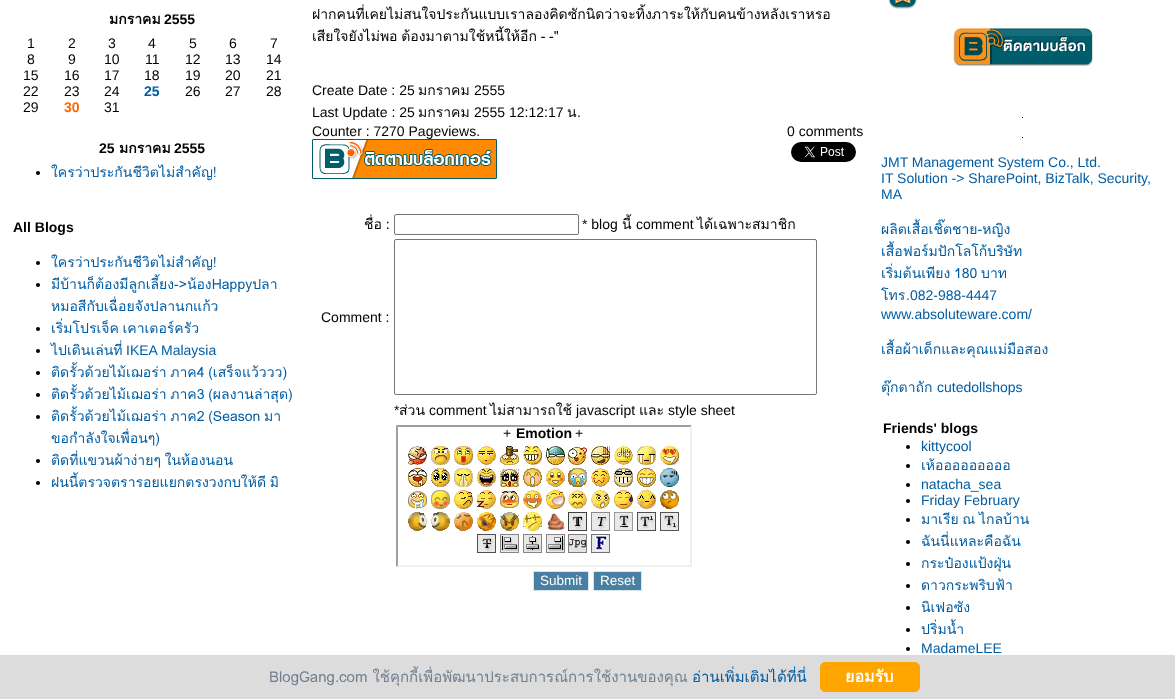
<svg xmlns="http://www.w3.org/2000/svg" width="1175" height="699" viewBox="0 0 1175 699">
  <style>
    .t1 { font: bold 14px Loma; fill: #000; }
    .t2 { font: bold 14px Liberation Sans; fill: #000; }
    .t3 { font: 14px Liberation Sans; fill: #000; }
    .t4 { font: bold 14px Liberation Sans; fill: #005ca2; }
    .t5 { font: bold 14px Liberation Sans; fill: #f60; }
    .t6 { font: 14px Loma; fill: #005ca2; }
    .t7 { font: 14px Liberation Sans; fill: #005ca2; }
    .t8 { font: 14px Loma; fill: #000; }
    .t9 { font: 13.5px Liberation Sans; fill: #fff; }
    .t10 { font: 15px Loma; fill: #708090; }
    .t11 { font: 15px Loma; fill: #005ca2; }
    .t12 { font: bold 16px Loma; fill: #fff; }
  </style>
  <rect width="100%" height="100%" fill="#fff"/>
  <text x="109" y="24" class="t1">มกราคม</text>
  <text x="164" y="24" class="t2">2555</text>
  <text x="27" y="48" class="t3">1</text>
  <text x="68" y="48" class="t3">2</text>
  <text x="108" y="48" class="t3">3</text>
  <text x="148" y="48" class="t3">4</text>
  <text x="189" y="48" class="t3">5</text>
  <text x="229" y="48" class="t3">6</text>
  <text x="270" y="48" class="t3">7</text>
  <text x="27" y="64" class="t3">8</text>
  <text x="68" y="64" class="t3">9</text>
  <text x="104" y="64" class="t3">10</text>
  <text x="145" y="64" class="t3">11</text>
  <text x="185" y="64" class="t3">12</text>
  <text x="225" y="64" class="t3">13</text>
  <text x="266" y="64" class="t3">14</text>
  <text x="23" y="80" class="t3">15</text>
  <text x="64" y="80" class="t3">16</text>
  <text x="104" y="80" class="t3">17</text>
  <text x="144" y="80" class="t3">18</text>
  <text x="185" y="80" class="t3">19</text>
  <text x="225" y="80" class="t3">20</text>
  <text x="266" y="80" class="t3">21</text>
  <text x="23" y="96" class="t3">22</text>
  <text x="64" y="96" class="t3">23</text>
  <text x="104" y="96" class="t3">24</text>
  <text x="144" y="96" class="t4">25</text>
  <text x="185" y="96" class="t3">26</text>
  <text x="225" y="96" class="t3">27</text>
  <text x="266" y="96" class="t3">28</text>
  <text x="23" y="112" class="t3">29</text>
  <text x="64" y="112" class="t5">30</text>
  <text x="104" y="112" class="t3">31</text>
  <text x="99" y="153" class="t2">25</text>
  <text x="119" y="153" class="t1">มกราคม</text>
  <text x="174" y="153" class="t2">2555</text>
  <circle cx="38" cy="173" r="2" fill="#000"/>
  <text x="51" y="177" class="t6">ใครว่าประกันชีวิตไม่สำคัญ!</text>
  <text x="13" y="232" class="t2">All Blogs</text>
  <circle cx="38" cy="263" r="2" fill="#000"/>
  <text x="51" y="267" class="t6">ใครว่าประกันชีวิตไม่สำคัญ!</text>
  <circle cx="38" cy="285" r="2" fill="#000"/>
  <text x="51" y="289" class="t6">มีบ้านก็ต้องมีลูกเลี้ยง-&gt;น้องHappyปลา</text>
  <text x="51" y="311" class="t6">หมอสีกับเฉื่อยจังปลานกแก้ว</text>
  <circle cx="38" cy="329" r="2" fill="#000"/>
  <text x="51" y="333" word-spacing="-1" class="t6">เริ่มโปรเจ็ค เคาเตอร์ครัว</text>
  <circle cx="38" cy="351" r="2" fill="#000"/>
  <text x="51" y="355" class="t6">ไปเดินเล่นที่</text>
  <text x="126" y="355" class="t7">IKEA Malaysia</text>
  <circle cx="38" cy="373" r="2" fill="#000"/>
  <text x="51" y="377" word-spacing="-1" class="t6">ติดรั้วด้วยไม้เฌอร่า ภาค4 (เสร็จแว้ววว)</text>
  <circle cx="38" cy="395" r="2" fill="#000"/>
  <text x="51" y="399" word-spacing="-1" class="t6">ติดรั้วด้วยไม้เฌอร่า ภาค3 (ผลงานล่าสุด)</text>
  <circle cx="38" cy="417" r="2" fill="#000"/>
  <text x="51" y="421" word-spacing="-1" class="t6">ติดรั้วด้วยไม้เฌอร่า ภาค2 (Season มา</text>
  <text x="51" y="443" class="t6">ขอกำลังใจเพื่อนๆ)</text>
  <circle cx="38" cy="461" r="2" fill="#000"/>
  <text x="51" y="465" word-spacing="-1" class="t6">ติดที่แขวนผ้าง่ายๆ ในห้องนอน</text>
  <circle cx="38" cy="483" r="2" fill="#000"/>
  <text x="51" y="487" word-spacing="-1" class="t6">ฝนนี้ตรวจตรารอยแยกตรงวงกบให้ดี มิ</text>
  <text x="312" y="19" class="t8">ฝากคนที่เคยไม่สนใจประกันแบบเราลองคิดซักนิดว่าจะทิ้งภาระให้กับคนข้างหลังเราหรอ</text>
  <text x="312" y="41" word-spacing="-1" class="t8">เสียใจยังไม่พอ ต้องมาตามใช้หนี้ให้อีก - -"</text>
  <text x="312" y="95" class="t3">Create Date : 25</text>
  <text x="418" y="95" class="t8">มกราคม</text>
  <text x="474" y="95" class="t3">2555</text>
  <text x="312" y="117" class="t3">Last Update : 25</text>
  <text x="418" y="117" class="t8">มกราคม</text>
  <text x="474" y="117" class="t3">2555 12:12:17</text>
  <text x="567" y="117" class="t8">น</text>
  <text x="577" y="117" class="t3">.</text>
  <text x="787" y="136" class="t3">0 comments</text>
  <text x="312" y="136" class="t3">Counter : 7270 Pageviews.</text>
  <image x="312" y="139" width="185" height="40" href="images/1.png"/>
  <image x="791" y="142" width="65" height="20" href="images/2.png"/>
  <text x="364" y="229" word-spacing="-1" class="t8">ชื่อ :</text>
  <rect x="394.5" y="214.5" width="184" height="20" rx="1.5" fill="none" stroke="#767676"/>
  <text x="582" y="229" class="t3">* blog</text>
  <text x="622" y="229" class="t8">นี้</text>
  <text x="636" y="229" class="t3">comment</text>
  <text x="697" y="229" class="t8">ได้เฉพาะสมาชิก</text>
  <text x="321" y="322" class="t3">Comment :</text>
  <rect x="394.5" y="239.5" width="422" height="155" rx="1.5" fill="none" stroke="#767676"/>
  <text x="394" y="415" class="t3">*</text>
  <text x="399" y="415" class="t8">ส่วน</text>
  <text x="490" y="415" class="t8">ไม่สามารถใช้</text>
  <text x="576" y="415" class="t3">javascript</text>
  <text x="668" y="415" class="t3">style sheet</text>
  <text x="429" y="415" class="t3">comment</text>
  <text x="639" y="415" class="t8">และ</text>
  <path d="M396 425H692L690 427H398Z" fill="#9f9f9f"/>
  <path d="M692 425V567L690 565V427Z" fill="#efefef"/>
  <path d="M692 567H396L398 565H690Z" fill="#efefef"/>
  <path d="M396 567V425L398 427V565Z" fill="#9f9f9f"/>
  <text x="503" y="438" class="t3">+</text>
  <text x="516" y="438" class="t2">Emotion</text>
  <text x="575" y="438" class="t3">+</text>
  <image x="408" y="446" width="19" height="19" href="images/3.png"/>
  <image x="431" y="446" width="19" height="19" href="images/4.png"/>
  <image x="454" y="446" width="19" height="19" href="images/5.png"/>
  <image x="477" y="446" width="19" height="19" href="images/6.png"/>
  <image x="500" y="446" width="19" height="19" href="images/7.png"/>
  <image x="523" y="446" width="19" height="19" href="images/8.png"/>
  <image x="546" y="446" width="19" height="19" href="images/9.png"/>
  <image x="568" y="447" width="19" height="18" href="images/10.png"/>
  <image x="591" y="446" width="19" height="19" href="images/11.png"/>
  <image x="614" y="446" width="19" height="19" href="images/12.png"/>
  <image x="637" y="446" width="19" height="19" href="images/13.png"/>
  <image x="660" y="446" width="19" height="19" href="images/14.png"/>
  <image x="408" y="468" width="19" height="19" href="images/15.png"/>
  <image x="431" y="468" width="19" height="19" href="images/16.png"/>
  <image x="454" y="468" width="19" height="19" href="images/17.png"/>
  <image x="477" y="468" width="19" height="19" href="images/18.png"/>
  <image x="500" y="469" width="19" height="18" href="images/19.png"/>
  <image x="523" y="468" width="19" height="19" href="images/20.png"/>
  <image x="546" y="468" width="19" height="19" href="images/21.png"/>
  <image x="568" y="468" width="19" height="19" href="images/22.png"/>
  <image x="591" y="468" width="19" height="19" href="images/23.png"/>
  <image x="614" y="468" width="19" height="19" href="images/24.png"/>
  <image x="637" y="468" width="19" height="19" href="images/25.png"/>
  <image x="660" y="468" width="19" height="19" href="images/26.png"/>
  <image x="408" y="491" width="19" height="18" href="images/27.png"/>
  <image x="431" y="490" width="19" height="19" href="images/28.png"/>
  <image x="454" y="490" width="19" height="19" href="images/29.png"/>
  <image x="477" y="490" width="19" height="19" href="images/30.png"/>
  <image x="500" y="491" width="19" height="17" href="images/31.png"/>
  <image x="523" y="490" width="19" height="19" href="images/32.png"/>
  <image x="546" y="490" width="19" height="19" href="images/33.png"/>
  <image x="568" y="490" width="19" height="19" href="images/34.png"/>
  <image x="591" y="490" width="19" height="19" href="images/35.png"/>
  <image x="614" y="490" width="19" height="19" href="images/36.png"/>
  <image x="637" y="490" width="19" height="19" href="images/37.png"/>
  <image x="660" y="490" width="19" height="19" href="images/38.png"/>
  <image x="408" y="512" width="19" height="19" href="images/39.png"/>
  <image x="431" y="512" width="19" height="19" href="images/40.png"/>
  <image x="454" y="512" width="19" height="19" href="images/41.png"/>
  <image x="477" y="512" width="19" height="19" href="images/42.png"/>
  <image x="500" y="512" width="19" height="19" href="images/43.png"/>
  <image x="523" y="512" width="19" height="19" href="images/44.png"/>
  <image x="547" y="513" width="18" height="18" href="images/45.png"/>
  <image x="568" y="512" width="19" height="19" href="images/46.png"/>
  <image x="591" y="512" width="19" height="19" href="images/47.png"/>
  <image x="614" y="512" width="19" height="19" href="images/48.png"/>
  <image x="637" y="512" width="19" height="19" href="images/49.png"/>
  <image x="660" y="512" width="19" height="19" href="images/50.png"/>
  <image x="477" y="534" width="19" height="19" href="images/51.png"/>
  <image x="500" y="534" width="19" height="19" href="images/52.png"/>
  <image x="523" y="534" width="19" height="19" href="images/53.png"/>
  <image x="546" y="534" width="19" height="19" href="images/54.png"/>
  <image x="568" y="534" width="19" height="19" href="images/55.png"/>
  <image x="591" y="534" width="19" height="19" href="images/56.png"/>
  <rect x="533.5" y="571.5" width="55" height="19" fill="#497fa0" stroke="#dae5e9"/>
  <text x="540" y="585" class="t9">Submit</text>
  <rect x="593.5" y="571.5" width="48" height="19" fill="#497fa0" stroke="#dae5e9"/>
  <text x="600" y="585" class="t9">Reset</text>
  <image x="888" y="0" width="29" height="9" href="images/57.png"/>
  <image x="953" y="28" width="140" height="38" href="images/58.png"/>
  <rect x="1022" y="117" width="1" height="1" fill="#000"/>
  <rect x="1022" y="137" width="1" height="1" fill="#000"/>
  <text x="881" y="167" class="t7">JMT Management System Co., Ltd.</text>
  <text x="881" y="183" class="t7">IT Solution -&gt; SharePoint, BizTalk, Security,</text>
  <text x="881" y="199" class="t7">MA</text>
  <text x="881" y="234" class="t6">ผลิตเสื้อเชิ๊ตชาย-หญิง</text>
  <text x="881" y="256" class="t6">เสื้อฟอร์มปักโลโก้บริษัท</text>
  <text x="881" y="278" word-spacing="-1" class="t6">เริ่มต้นเพียง 180 บาท</text>
  <text x="881" y="300" class="t6">โทร</text>
  <text x="906" y="300" class="t7">.082-988-4447</text>
  <text x="881" y="319" class="t7">www.absoluteware.com/</text>
  <text x="881" y="354" class="t6">เสื้อผ้าเด็กและคุณแม่มือสอง</text>
  <text x="881" y="392" class="t6">ตุ๊กตาถัก</text>
  <text x="937" y="392" class="t7">cutedollshops</text>
  <text x="883" y="433" class="t2">Friends' blogs</text>
  <circle cx="908" cy="447" r="2" fill="#000"/>
  <text x="921" y="451" class="t7">kittycool</text>
  <circle cx="908" cy="466" r="2" fill="#000"/>
  <text x="921" y="470" class="t6">เห้อออออออออ</text>
  <circle cx="908" cy="485" r="2" fill="#000"/>
  <text x="921" y="489" class="t7">natacha_sea</text>
  <circle cx="908" cy="501" r="2" fill="#000"/>
  <text x="921" y="505" class="t7">Friday February</text>
  <circle cx="908" cy="520" r="2" fill="#000"/>
  <text x="921" y="524" word-spacing="-1" class="t6">มาเรีย ณ ไกลบ้าน</text>
  <circle cx="908" cy="542" r="2" fill="#000"/>
  <text x="921" y="546" class="t6">ฉันนี่แหละคือฉัน</text>
  <circle cx="908" cy="564" r="2" fill="#000"/>
  <text x="921" y="568" class="t6">กระป๋องแป้งฝุ่น</text>
  <circle cx="908" cy="586" r="2" fill="#000"/>
  <text x="921" y="590" class="t6">ดาวกระพริบฟ้า</text>
  <circle cx="908" cy="608" r="2" fill="#000"/>
  <text x="921" y="612" class="t6">นิเฟอซัง</text>
  <circle cx="908" cy="630" r="2" fill="#000"/>
  <text x="921" y="634" class="t6">ปริ่มน้ำ</text>
  <circle cx="908" cy="649" r="2" fill="#000"/>
  <text x="921" y="653" class="t7">MadameLEE</text>
  <rect x="0" y="655" width="1175" height="44" fill="#dcdcdc"/>
  <text x="269" y="682" class="t10">BlogGang.com ใช้คุกกี้เพื่อพัฒนาประสบการณ์การใช้งานของคุณ</text>
  <text x="692" y="682" class="t11">อ่านเพิ่มเติมได้ที่นี่</text>
  <rect x="820.5" y="662.5" width="99" height="29" rx="4.5" fill="#ffa500" stroke="#ffa500"/>
  <text x="845" y="682" class="t12">ยอมรับ</text>
</svg>
